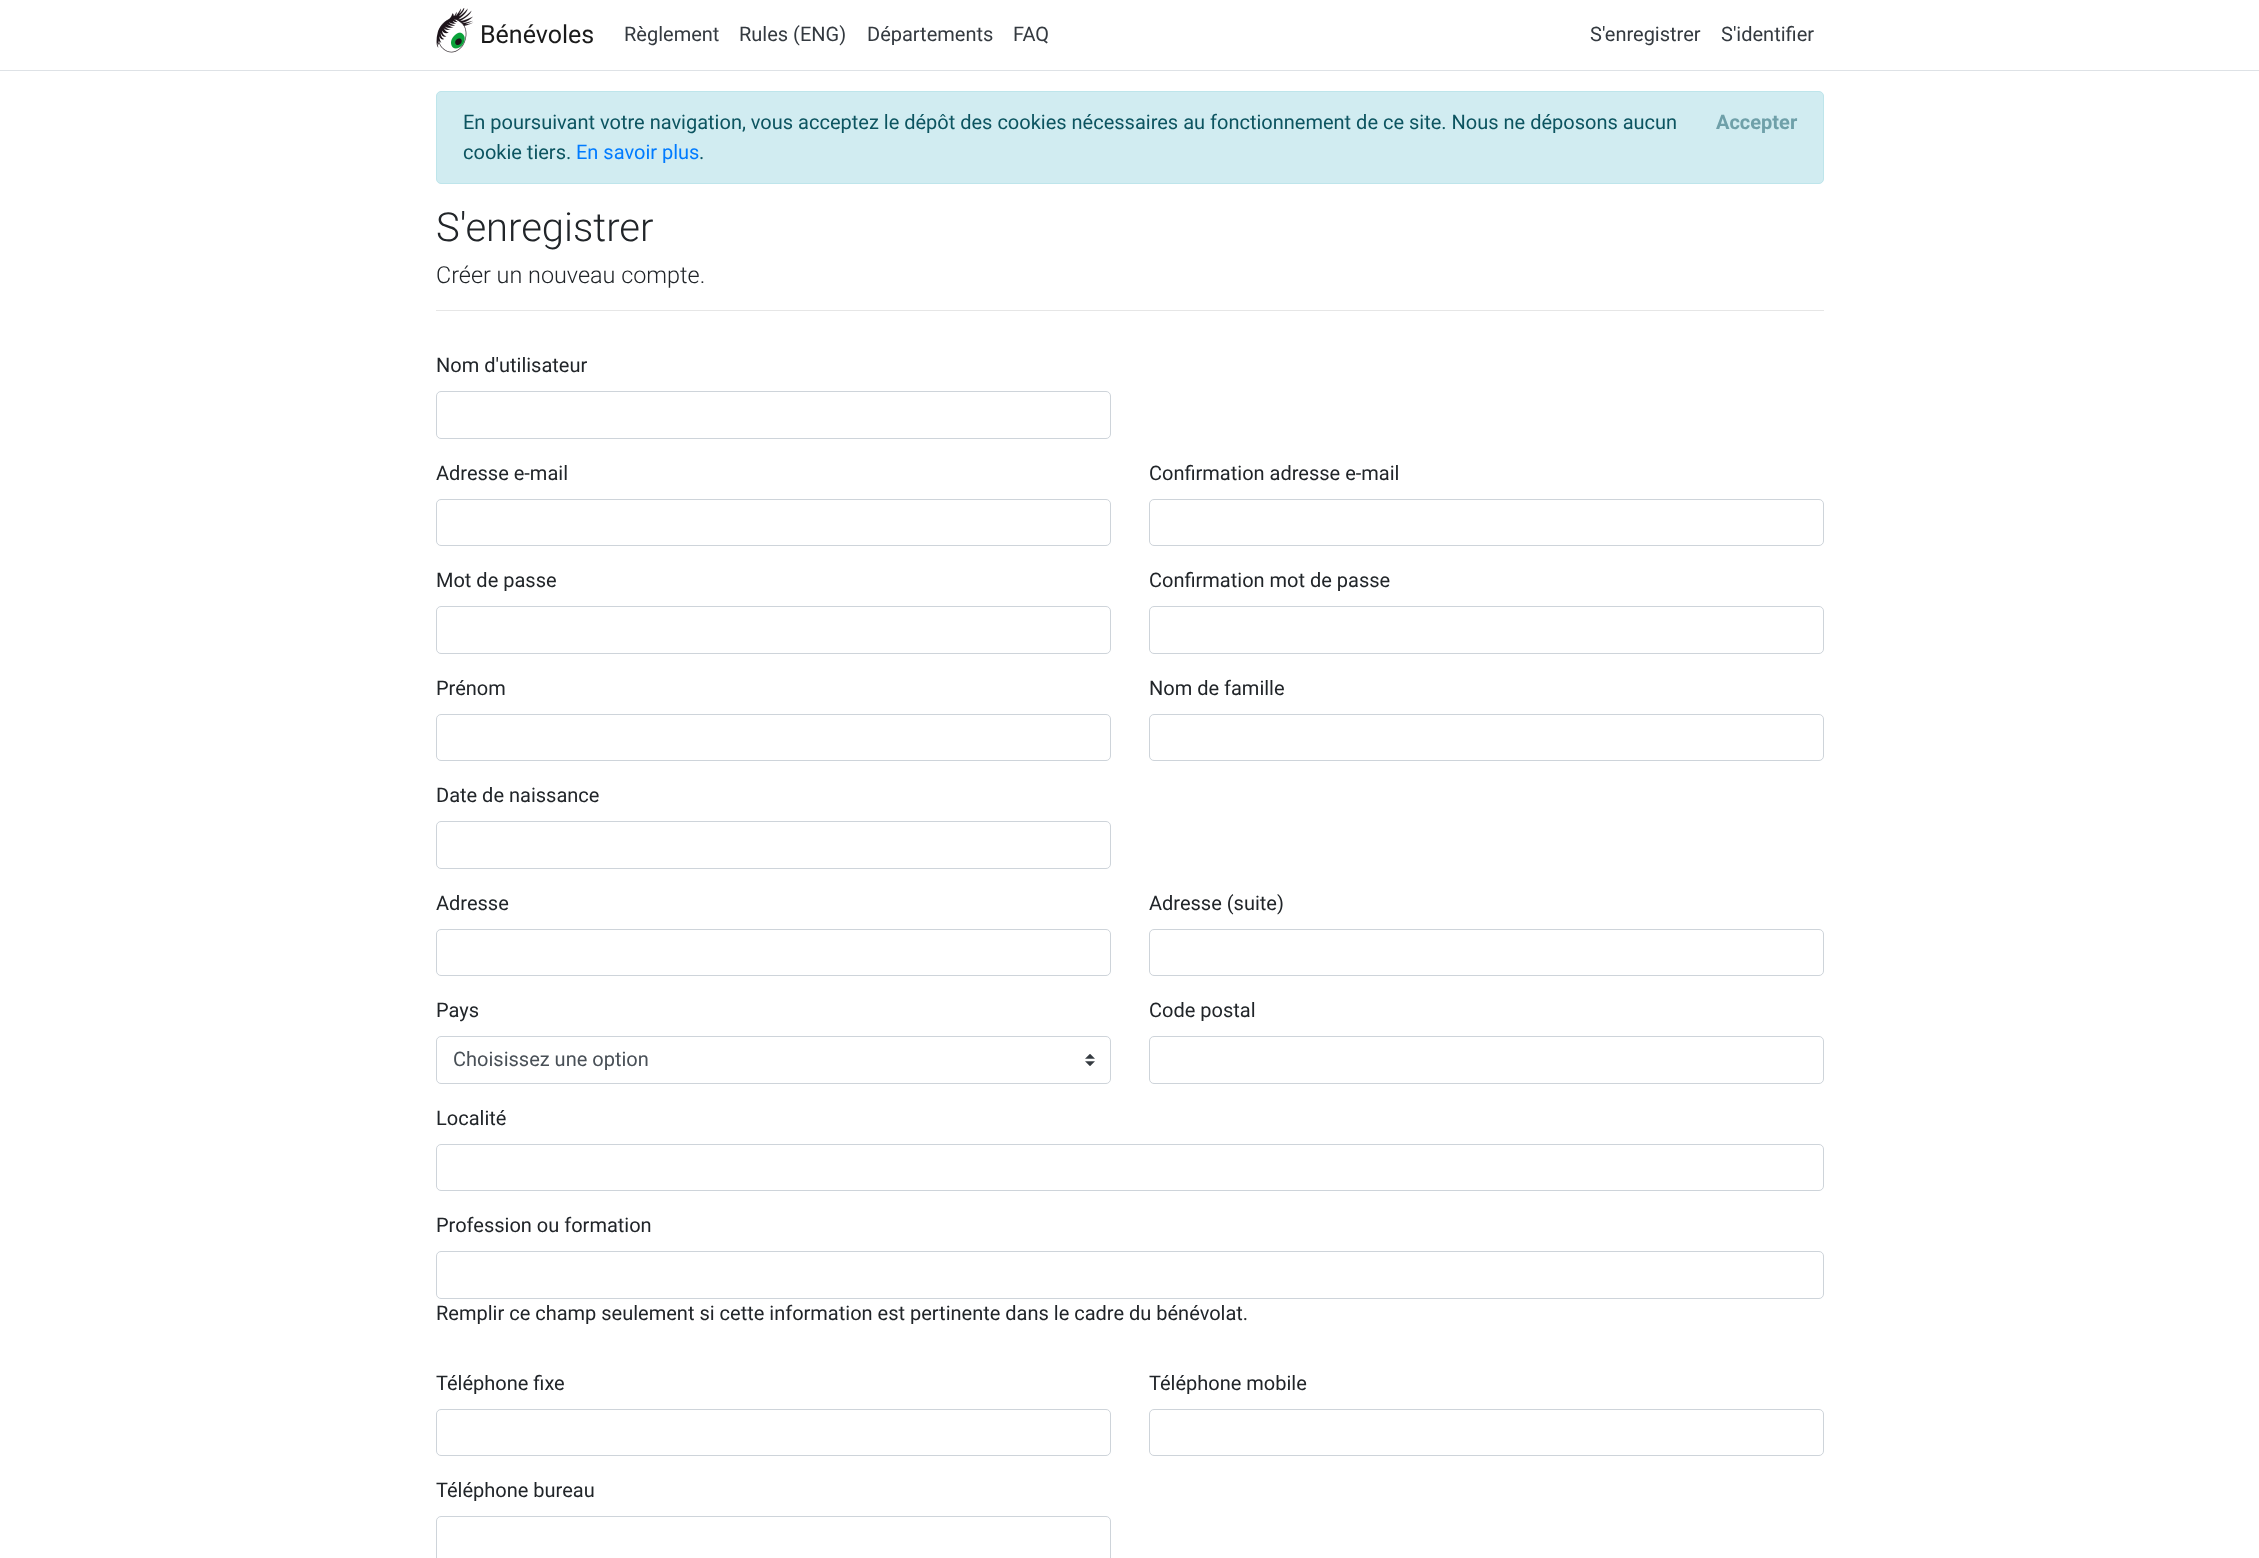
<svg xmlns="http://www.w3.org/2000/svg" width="2259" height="1558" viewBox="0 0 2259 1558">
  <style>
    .t1 { font: 25px Roboto; fill: #1a1a1a; }
    .t2 { font: 20px Roboto; fill: #343a40; }
    .t3 { font: 20px Roboto; fill: #0c5460; }
    .t4 { font: bold 20px Roboto; fill: #6fa0a9; }
    .t5 { font: 20px Roboto; fill: #007bff; }
    .t6 { font: 300 40px Roboto; fill: #212529; }
    .t7 { font: 300 23.4px Roboto; fill: #212529; }
    .t8 { font: 20px Roboto; fill: #212529; }
    .t9 { font: 20px Roboto; fill: #495057; }
  </style>
  <rect width="100%" height="100%" fill="#fff"/>
  <rect x="0" y="70" width="2259" height="1" fill="#dee2e6"/>
  <image x="436" y="8" width="38" height="45" href="images/1.png"/>
  <text x="480" y="43" class="t1">Bénévoles</text>
  <text x="624" y="41" class="t2">Règlement</text>
  <text x="739" y="41" class="t2">Rules (ENG)</text>
  <text x="867" y="41" class="t2">Départements</text>
  <text x="1013" y="41" class="t2">FAQ</text>
  <text x="1590" y="41" class="t2">S'enregistrer</text>
  <text x="1721" y="41" class="t2">S'identifier</text>
  <rect x="436.5" y="91.5" width="1387" height="92" rx="4.5" fill="#d1ecf1" stroke="#bee5eb"/>
  <text x="463" y="129" class="t3">En poursuivant votre navigation, vous acceptez le dépôt des cookies nécessaires au fonctionnement de ce site. Nous ne déposons aucun</text>
  <text x="1716" y="129" class="t4">Accepter</text>
  <text x="463" y="159" class="t3">cookie tiers.</text>
  <text x="576" y="159" class="t5">En savoir plus</text>
  <text x="699" y="159" class="t3">.</text>
  <text x="436" y="241" class="t6">S'enregistrer</text>
  <text x="436" y="283" class="t7">Créer un nouveau compte.</text>
  <rect x="436" y="310" width="1388" height="1" fill="#e6e6e6"/>
  <text x="436" y="372" class="t8">Nom d'utilisateur</text>
  <rect x="436.5" y="391.5" width="674" height="47" rx="4.5" fill="none" stroke="#ced4da"/>
  <text x="436" y="480" class="t8">Adresse e-mail</text>
  <rect x="436.5" y="499.5" width="674" height="46" rx="4.5" fill="none" stroke="#ced4da"/>
  <text x="1149" y="480" class="t8">Confirmation adresse e-mail</text>
  <rect x="1149.5" y="499.5" width="674" height="46" rx="4.5" fill="none" stroke="#ced4da"/>
  <text x="436" y="587" class="t8">Mot de passe</text>
  <rect x="436.5" y="606.5" width="674" height="47" rx="4.5" fill="none" stroke="#ced4da"/>
  <text x="1149" y="587" class="t8">Confirmation mot de passe</text>
  <rect x="1149.5" y="606.5" width="674" height="47" rx="4.5" fill="none" stroke="#ced4da"/>
  <text x="436" y="695" class="t8">Prénom</text>
  <rect x="436.5" y="714.5" width="674" height="46" rx="4.5" fill="none" stroke="#ced4da"/>
  <text x="1149" y="695" class="t8">Nom de famille</text>
  <rect x="1149.5" y="714.5" width="674" height="46" rx="4.5" fill="none" stroke="#ced4da"/>
  <text x="436" y="802" class="t8">Date de naissance</text>
  <rect x="436.5" y="821.5" width="674" height="47" rx="4.5" fill="none" stroke="#ced4da"/>
  <text x="436" y="910" class="t8">Adresse</text>
  <rect x="436.5" y="929.5" width="674" height="46" rx="4.5" fill="none" stroke="#ced4da"/>
  <text x="1149" y="910" class="t8">Adresse (suite)</text>
  <rect x="1149.5" y="929.5" width="674" height="46" rx="4.5" fill="none" stroke="#ced4da"/>
  <text x="436" y="1017" class="t8">Pays</text>
  <image x="1085" y="1054" width="10" height="12" href="images/2.png"/>
  <rect x="436.5" y="1036.5" width="674" height="47" rx="4.5" fill="none" stroke="#ced4da"/>
  <text x="453" y="1066" class="t9">Choisissez une option</text>
  <text x="1149" y="1017" class="t8">Code postal</text>
  <rect x="1149.5" y="1036.5" width="674" height="47" rx="4.5" fill="none" stroke="#ced4da"/>
  <text x="436" y="1125" class="t8">Localité</text>
  <rect x="436.5" y="1144.5" width="1387" height="46" rx="4.5" fill="none" stroke="#ced4da"/>
  <text x="436" y="1232" class="t8">Profession ou formation</text>
  <rect x="436.5" y="1251.5" width="1387" height="47" rx="4.5" fill="none" stroke="#ced4da"/>
  <text x="436" y="1320" class="t8">Remplir ce champ seulement si cette information est pertinente dans le cadre du bénévolat.</text>
  <text x="436" y="1390" class="t8">Téléphone fixe</text>
  <rect x="436.5" y="1409.5" width="674" height="46" rx="4.5" fill="none" stroke="#ced4da"/>
  <text x="1149" y="1390" class="t8">Téléphone mobile</text>
  <rect x="1149.5" y="1409.5" width="674" height="46" rx="4.5" fill="none" stroke="#ced4da"/>
  <text x="436" y="1497" class="t8">Téléphone bureau</text>
  <rect x="436.5" y="1516.5" width="674" height="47" rx="4.5" fill="none" stroke="#ced4da"/>
</svg>
